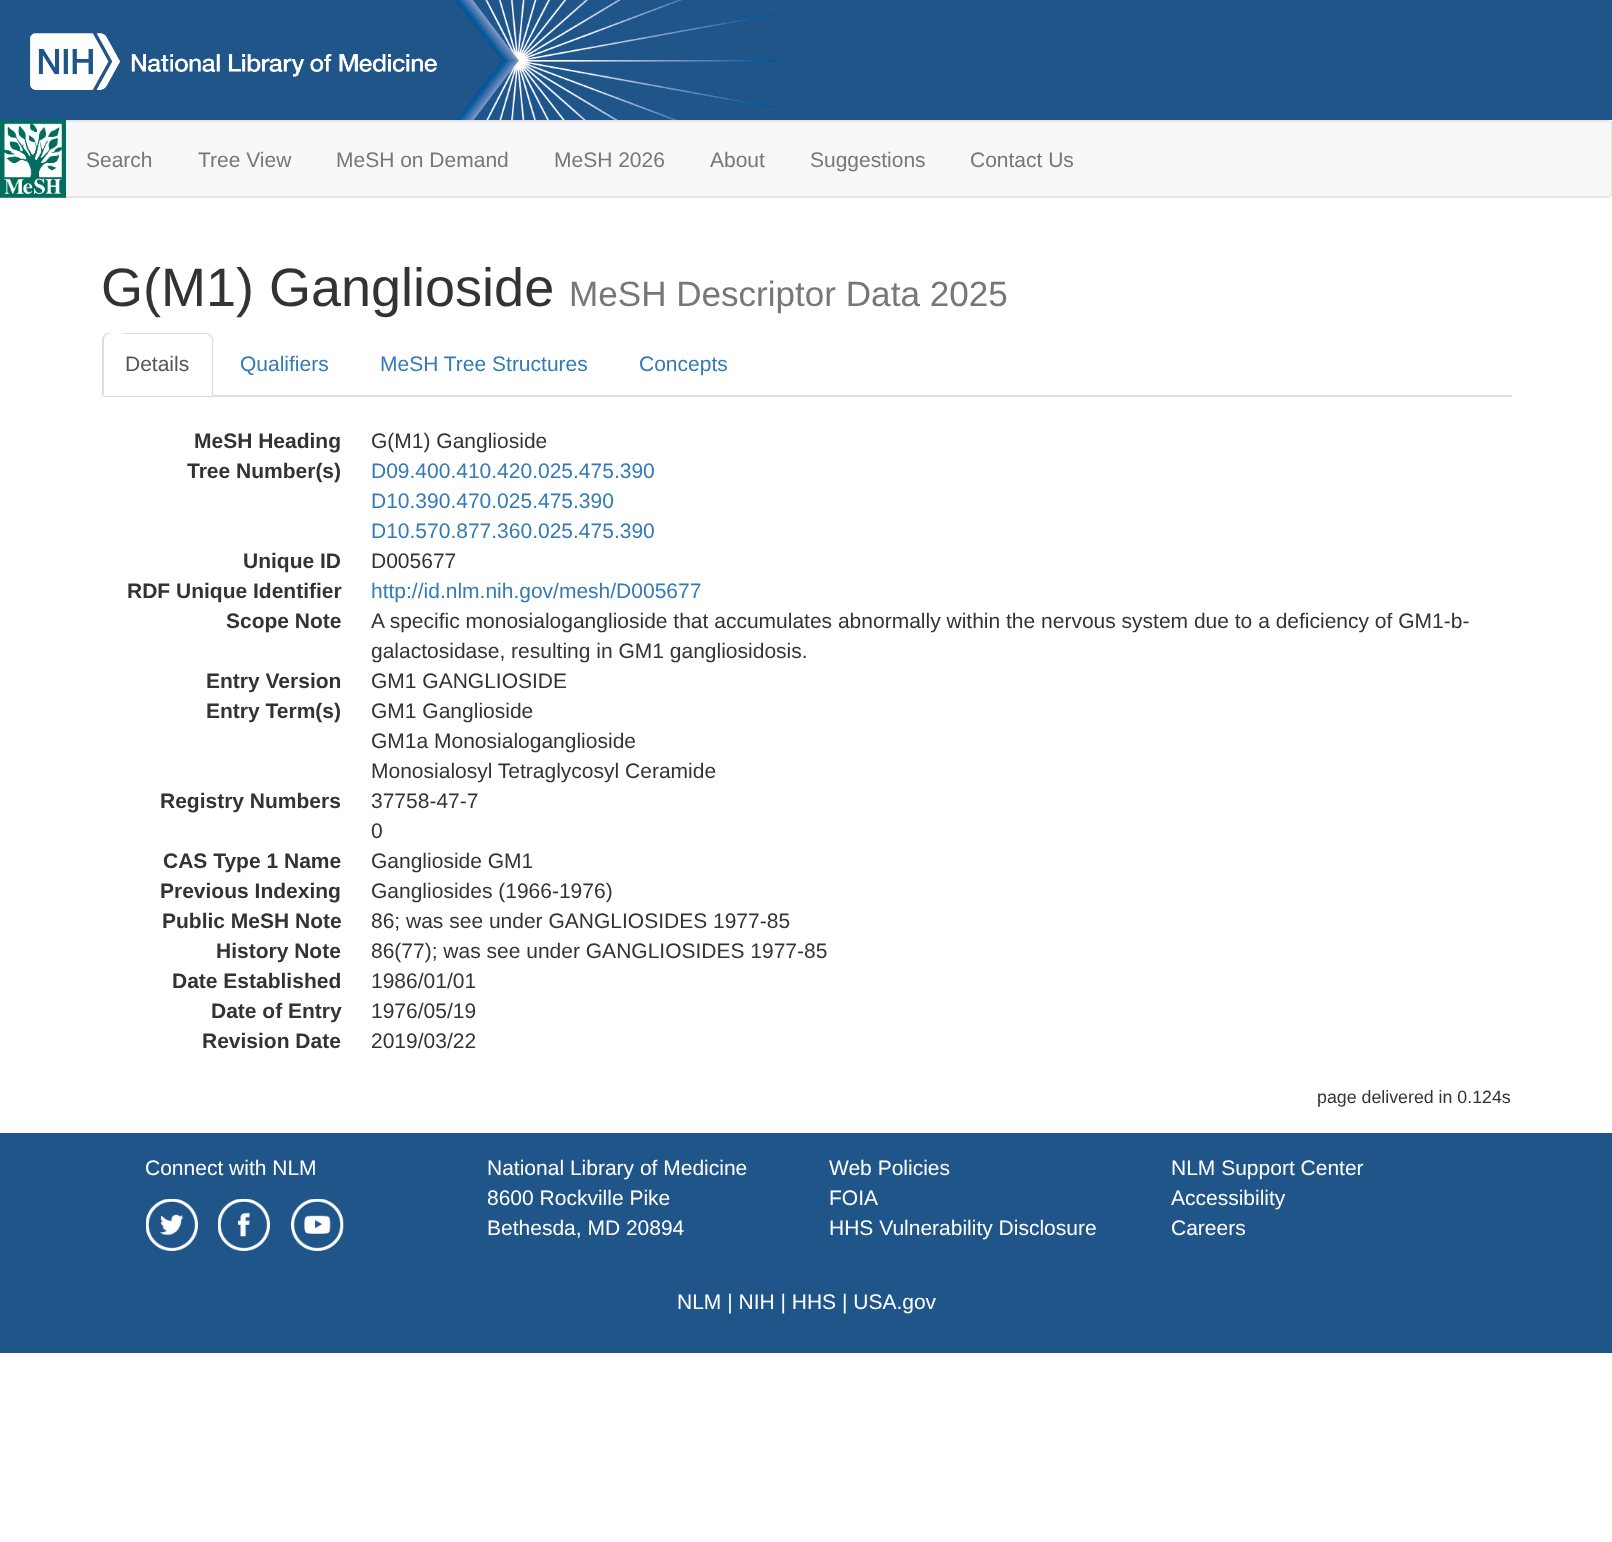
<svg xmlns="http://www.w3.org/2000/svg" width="1612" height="1542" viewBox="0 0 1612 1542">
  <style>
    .t1 { font: 21px Liberation Sans; fill: #777; }
    .t2 { font: 54px Liberation Sans; fill: #333; }
    .t3 { font: 35.1px Liberation Sans; fill: #777; }
    .t4 { font: 21px Liberation Sans; fill: #555; }
    .t5 { font: 21px Liberation Sans; fill: #337ab7; }
    .t6 { font: bold 21px Liberation Sans; fill: #333; }
    .t7 { font: 21px Liberation Sans; fill: #333; }
    .t8 { font: 17.8px Liberation Sans; fill: #333; }
    .t9 { font: 21px Liberation Sans; fill: #fff; }
  </style>
  <rect width="100%" height="100%" fill="#fff"/>
  <rect x="0" y="0" width="1612" height="120" fill="#20558a"/>
  <image x="455" y="0" width="324" height="120" href="images/1.png"/>
  <image x="30" y="33" width="407" height="57" href="images/2.png"/>
  <rect x="1" y="121" width="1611" height="76" rx="5" fill="#f8f8f8" stroke="#e7e7e7" stroke-width="2"/>
  <image x="0" y="120" width="66" height="78" href="images/3.png"/>
  <text x="86" y="167" class="t1">Search</text>
  <text x="198" y="167" class="t1">Tree View</text>
  <text x="336" y="167" class="t1">MeSH on Demand</text>
  <text x="554" y="167" class="t1">MeSH 2026</text>
  <text x="710" y="167" class="t1">About</text>
  <text x="810" y="167" class="t1">Suggestions</text>
  <text x="970" y="167" class="t1">Contact Us</text>
  <text x="101" y="306" class="t2">G(M1) Ganglioside</text>
  <text x="569" y="306" class="t3">MeSH Descriptor Data 2025</text>
  <rect x="102" y="395" width="1410" height="2" fill="#ddd"/>
  <path d="M108 333H207C210.5 333 213 335.5 213 339V396H102V339C102 335.5 104.5 333 108 333Z" fill="#fff"/>
  <path d="M108 333C106 333 105 334 104 335L105 336C109 331 123 334 124 334H207L210 336L211 335C210 334 208 333 207 333Z" fill="#ddd"/>
  <path d="M213 396V339C213 338 212 336 211 335L210 336L212 339V394H211Z" fill="#ddd"/>
  <path d="M102 396L104 394V339L105 336L104 335C103 336 102 338 102 339Z" fill="#ddd"/>
  <text x="125" y="371" class="t4">Details</text>
  <text x="240" y="371" class="t5">Qualifiers</text>
  <text x="380" y="371" class="t5">MeSH Tree Structures</text>
  <text x="639" y="371" class="t5">Concepts</text>
  <text x="194" y="448" class="t6">MeSH Heading</text>
  <text x="371" y="448" class="t7">G(M1) Ganglioside</text>
  <text x="187" y="478" class="t6">Tree Number(s)</text>
  <text x="371" y="478" class="t5">D09.400.410.420.025.475.390</text>
  <text x="371" y="508" class="t5">D10.390.470.025.475.390</text>
  <text x="371" y="538" class="t5">D10.570.877.360.025.475.390</text>
  <text x="243" y="568" class="t6">Unique ID</text>
  <text x="371" y="568" class="t7">D005677</text>
  <text x="127" y="598" class="t6">RDF Unique Identifier</text>
  <text x="371" y="598" class="t5">http://id.nlm.nih.gov/mesh/D005677</text>
  <text x="226" y="628" class="t6">Scope Note</text>
  <text x="371" y="628" class="t7">A specific monosialoganglioside that accumulates abnormally within the nervous system due to a deficiency of GM1-b-</text>
  <text x="371" y="658" class="t7">galactosidase, resulting in GM1 gangliosidosis.</text>
  <text x="206" y="688" class="t6">Entry Version</text>
  <text x="371" y="688" class="t7">GM1 GANGLIOSIDE</text>
  <text x="206" y="718" class="t6">Entry Term(s)</text>
  <text x="371" y="718" class="t7">GM1 Ganglioside</text>
  <text x="371" y="748" class="t7">GM1a Monosialoganglioside</text>
  <text x="371" y="778" class="t7">Monosialosyl Tetraglycosyl Ceramide</text>
  <text x="160" y="808" class="t6">Registry Numbers</text>
  <text x="371" y="808" class="t7">37758-47-7</text>
  <text x="371" y="838" class="t7">0</text>
  <text x="163" y="868" class="t6">CAS Type 1 Name</text>
  <text x="371" y="868" class="t7">Ganglioside GM1</text>
  <text x="160" y="898" class="t6">Previous Indexing</text>
  <text x="371" y="898" class="t7">Gangliosides (1966-1976)</text>
  <text x="162" y="928" class="t6">Public MeSH Note</text>
  <text x="371" y="928" class="t7">86; was see under GANGLIOSIDES 1977-85</text>
  <text x="216" y="958" class="t6">History Note</text>
  <text x="371" y="958" class="t7">86(77); was see under GANGLIOSIDES 1977-85</text>
  <text x="172" y="988" class="t6">Date Established</text>
  <text x="371" y="988" class="t7">1986/01/01</text>
  <text x="211" y="1018" class="t6">Date of Entry</text>
  <text x="371" y="1018" class="t7">1976/05/19</text>
  <text x="202" y="1048" class="t6">Revision Date</text>
  <text x="371" y="1048" class="t7">2019/03/22</text>
  <text x="1317" y="1103" class="t8">page delivered in 0.124s</text>
  <rect x="0" y="1133" width="1612" height="220" fill="#20558a"/>
  <text x="145" y="1175" class="t9">Connect with NLM</text>
  <image x="146" y="1199" width="52" height="52" href="images/4.png"/>
  <image x="218" y="1199" width="52" height="52" href="images/5.png"/>
  <image x="291" y="1199" width="53" height="52" href="images/6.png"/>
  <text x="487" y="1175" class="t9">National Library of Medicine</text>
  <text x="487" y="1205" class="t9">8600 Rockville Pike</text>
  <text x="487" y="1235" class="t9">Bethesda, MD 20894</text>
  <text x="829" y="1175" class="t9">Web Policies</text>
  <text x="829" y="1205" class="t9">FOIA</text>
  <text x="829" y="1235" class="t9">HHS Vulnerability Disclosure</text>
  <text x="1171" y="1175" class="t9">NLM Support Center</text>
  <text x="1171" y="1205" class="t9">Accessibility</text>
  <text x="1171" y="1235" class="t9">Careers</text>
  <text x="677" y="1309" class="t9">NLM | NIH | HHS | USA.gov</text>
</svg>
